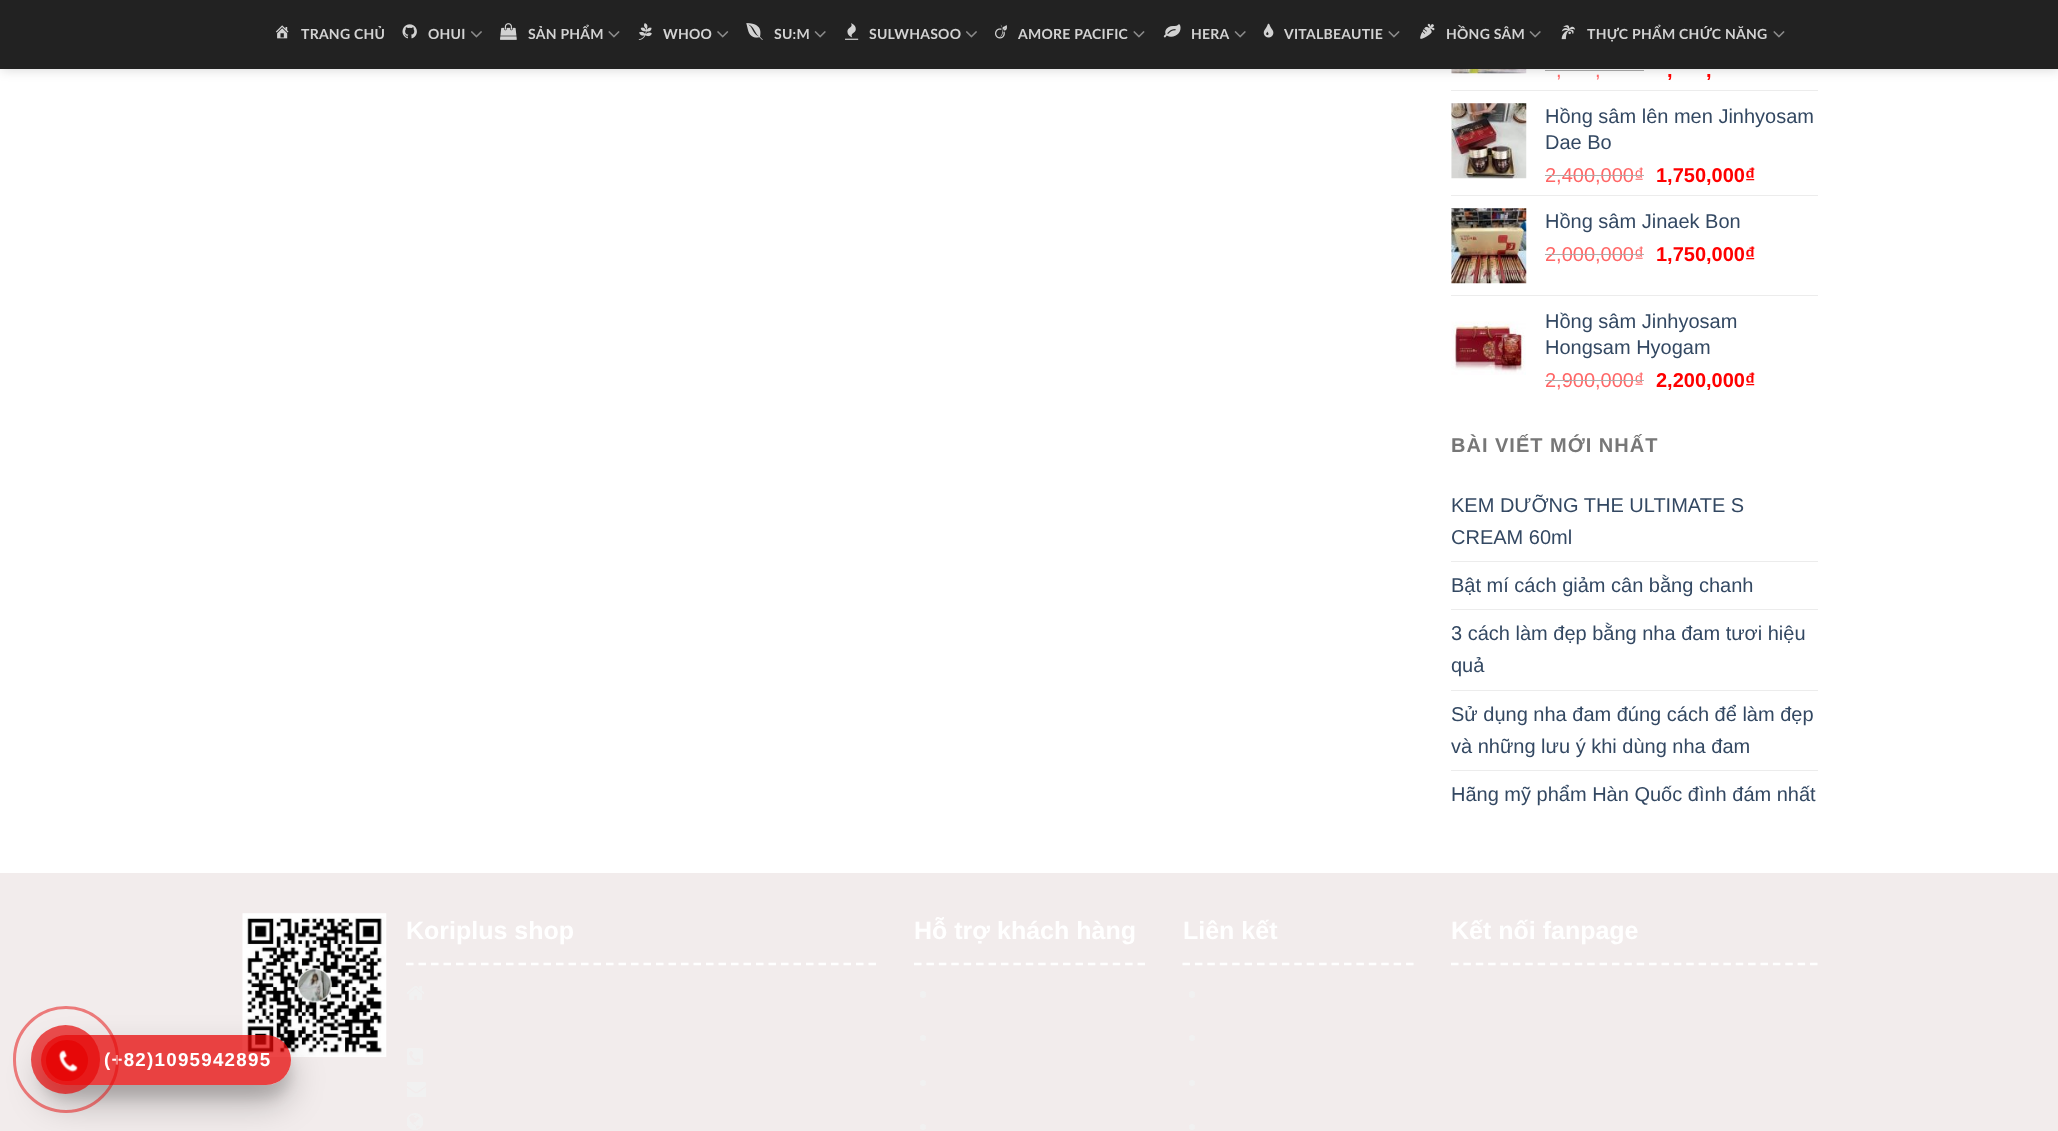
<svg xmlns="http://www.w3.org/2000/svg" width="2058" height="1131" viewBox="0 0 2058 1131">
  <style>
    .t1 { font: bold 14px Lato; letter-spacing: 0.25px; fill: #d3d3d3; }
    .t2 { font: 20px Liberation Sans; fill: #f66; }
    .t3 { font: bold 20px Liberation Sans; fill: #f00; }
    .t4 { font: 20px Liberation Sans; fill: #334862; }
    .t5 { font: bold 20px Liberation Sans; letter-spacing: 1px; fill: #777; }
    .t6 { font: bold 25px Liberation Sans; fill: #fff; }
    .t7 { font: bold 18.75px Liberation Sans; letter-spacing: 1.25px; fill: #fff; }
  </style>
  <defs>
    <clipPath id="clip1"><path d="M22 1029H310V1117H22ZM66 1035H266C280 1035 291 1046 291 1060C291 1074 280 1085 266 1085H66C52 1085 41 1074 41 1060C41 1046 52 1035 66 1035Z" clip-rule="evenodd"/></clipPath>
    <clipPath id="clip2"><path d="M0 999H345V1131H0ZM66 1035H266C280 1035 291 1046 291 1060C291 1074 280 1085 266 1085H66C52 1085 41 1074 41 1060C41 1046 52 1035 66 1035Z" clip-rule="evenodd"/></clipPath>
  </defs>
  <rect width="100%" height="100%" fill="#fff"/>
  <image x="1451" y="69" width="76" height="5" href="images/16.png"/>
  <rect x="1545" y="70" width="99" height="1" fill="#adadad"/>
  <rect x="1" y="1" width="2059" height="69" fill="#00000026" filter="blur(6px)"/>
  <rect x="0" y="0" width="2058" height="69" fill="#222"/>
  <image x="275" y="25" width="14" height="14" href="images/1.png"/>
  <text x="301" y="39" class="t1">TRANG CHỦ</text>
  <image x="402" y="24" width="15" height="15" href="images/2.png"/>
  <text x="428" y="39" class="t1">OHUI</text>
  <image x="471" y="31" width="11" height="7" href="images/3.png"/>
  <image x="500" y="23" width="17" height="17" href="images/4.png"/>
  <text x="528" y="39" class="t1">SẢN PHẨM</text>
  <image x="608" y="31" width="12" height="7" href="images/5.png"/>
  <image x="638" y="23" width="14" height="17" href="images/6.png"/>
  <text x="663" y="39" class="t1">WHOO</text>
  <image x="717" y="31" width="12" height="7" href="images/7.png"/>
  <image x="746" y="23" width="17" height="17" href="images/8.png"/>
  <text x="774" y="39" class="t1">SU:M</text>
  <image x="814" y="31" width="12" height="7" href="images/9.png"/>
  <image x="845" y="23" width="14" height="17" href="images/10.png"/>
  <text x="869" y="39" class="t1">SULWHASOO</text>
  <image x="966" y="31" width="11" height="7" href="images/3.png"/>
  <image x="995" y="24" width="12" height="15" href="images/11.png"/>
  <text x="1018" y="39" class="t1">AMORE PACIFIC</text>
  <image x="1133" y="31" width="12" height="7" href="images/5.png"/>
  <image x="1163" y="24" width="18" height="14" href="images/12.png"/>
  <text x="1191" y="39" class="t1">HERA</text>
  <image x="1234" y="31" width="12" height="7" href="images/9.png"/>
  <image x="1263" y="23" width="11" height="15" href="images/13.png"/>
  <text x="1284" y="39" class="t1">VITALBEAUTIE</text>
  <image x="1388" y="31" width="12" height="7" href="images/5.png"/>
  <image x="1420" y="23" width="15" height="16" href="images/14.png"/>
  <text x="1446" y="39" class="t1">HỒNG SÂM</text>
  <image x="1529" y="31" width="12" height="7" href="images/9.png"/>
  <image x="1561" y="25" width="15" height="15" href="images/15.png"/>
  <text x="1587" y="39" class="t1">THỰC PHẨM CHỨC NĂNG</text>
  <image x="1773" y="31" width="12" height="7" href="images/5.png"/>
  <text x="1556" y="77" class="t2">,</text>
  <text x="1595" y="77" class="t2">,</text>
  <text x="1667" y="77" class="t3">,</text>
  <text x="1706" y="77" class="t3">,</text>
  <rect x="1451" y="90" width="367" height="1" fill="#ececec"/>
  <image x="1451" y="103" width="76" height="76" href="images/17.png"/>
  <text x="1545" y="123" class="t4">Hồng sâm lên men Jinhyosam</text>
  <text x="1545" y="149" class="t4">Dae Bo</text>
  <text x="1545" y="182" class="t2">2,400,000₫</text>
  <rect x="1545" y="175" width="99" height="1" fill="#adadad"/>
  <text x="1656" y="182" class="t3">1,750,000₫</text>
  <rect x="1451" y="195" width="367" height="1" fill="#ececec"/>
  <image x="1451" y="208" width="76" height="76" href="images/18.png"/>
  <text x="1545" y="228" class="t4">Hồng sâm Jinaek Bon</text>
  <text x="1545" y="261" class="t2">2,000,000₫</text>
  <rect x="1545" y="254" width="99" height="1" fill="#adadad"/>
  <text x="1656" y="261" class="t3">1,750,000₫</text>
  <rect x="1451" y="295" width="367" height="1" fill="#ececec"/>
  <image x="1451" y="321" width="75" height="54" href="images/19.png"/>
  <text x="1545" y="328" class="t4">Hồng sâm Jinhyosam</text>
  <text x="1545" y="354" class="t4">Hongsam Hyogam</text>
  <text x="1545" y="387" class="t2">2,900,000₫</text>
  <rect x="1545" y="380" width="99" height="1" fill="#adadad"/>
  <text x="1656" y="387" class="t3">2,200,000₫</text>
  <text x="1451" y="452" class="t5">BÀI VIẾT MỚI NHẤT</text>
  <text x="1451" y="512" class="t4">KEM DƯỠNG THE ULTIMATE S</text>
  <text x="1451" y="544" class="t4">CREAM 60ml</text>
  <rect x="1451" y="561" width="367" height="1" fill="#ececec"/>
  <text x="1451" y="592" class="t4">Bật mí cách giảm cân bằng chanh</text>
  <rect x="1451" y="609" width="367" height="1" fill="#ececec"/>
  <text x="1451" y="640" class="t4">3 cách làm đẹp bằng nha đam tươi hiệu</text>
  <text x="1451" y="672" class="t4">quả</text>
  <rect x="1451" y="690" width="367" height="1" fill="#ececec"/>
  <text x="1451" y="721" class="t4">Sử dụng nha đam đúng cách để làm đẹp</text>
  <text x="1451" y="753" class="t4">và những lưu ý khi dùng nha đam</text>
  <rect x="1451" y="770" width="367" height="1" fill="#ececec"/>
  <text x="1451" y="801" class="t4">Hãng mỹ phẩm Hàn Quốc đình đám nhất</text>
  <rect x="0" y="873" width="2058" height="258" fill="#f2ecec"/>
  <image x="242" y="913" width="145" height="144" href="images/20.png"/>
  <text x="406" y="939" class="t6">Koriplus shop</text>
  <path d="M406 964H876" fill="none" stroke="#fff" stroke-width="2.5" stroke-dasharray="7.5 5"/>
  <image x="407" y="986" width="17" height="14" href="images/21.png"/>
  <image x="407" y="1048" width="16" height="17" href="images/22.png"/>
  <image x="407" y="1082" width="19" height="15" href="images/23.png"/>
  <image x="407" y="1113" width="16" height="17" href="images/24.png"/>
  <text x="914" y="939" class="t6">Hỗ trợ khách hàng</text>
  <path d="M914 964H1145" fill="none" stroke="#fff" stroke-width="2.5" stroke-dasharray="7.5 4.92"/>
  <rect x="920" y="991" width="6" height="7" rx="3" fill="#f1f1f1"/>
  <circle cx="923" cy="1038" r="3" fill="#f1f1f1"/>
  <circle cx="923" cy="1083" r="3" fill="#f1f1f1"/>
  <circle cx="923" cy="1127" r="3" fill="#f1f1f1"/>
  <text x="1183" y="939" class="t6">Liên kết</text>
  <path d="M1182.5 964H1414" fill="none" stroke="#fff" stroke-width="2.5" stroke-dasharray="7.5 4.92"/>
  <rect x="1189" y="991" width="6" height="7" rx="3" fill="#f1f1f1"/>
  <circle cx="1192" cy="1038" r="3" fill="#f1f1f1"/>
  <circle cx="1192" cy="1083" r="3" fill="#f1f1f1"/>
  <circle cx="1192" cy="1127" r="3" fill="#f1f1f1"/>
  <text x="1451" y="939" class="t6">Kết nối fanpage</text>
  <path d="M1451 964H1817.5" fill="none" stroke="#fff" stroke-width="2.5" stroke-dasharray="7.5 4.88"/>
  <g clip-path="url(#clip1)">
    <rect x="41" y="1048" width="250" height="50" rx="25" fill="#0000001a" filter="blur(6px)"/>
  </g>
  <g clip-path="url(#clip2)">
    <rect x="41" y="1053" width="250" height="50" rx="25" fill="#00000040" filter="blur(17.5px)"/>
  </g>
  <rect x="41" y="1035" width="250" height="50" rx="25" fill="#e60808bf"/>
  <text x="104" y="1066" class="t7">(+82)1095942895</text>
  <rect x="14.5" y="1007.5" width="103" height="104" rx="51.5" fill="none" stroke="#e6080880" stroke-width="3"/>
  <circle cx="65.5" cy="1059.5" r="34.5" fill="#e60808b3"/>
  <rect x="46" y="1040" width="42" height="41" rx="20.5" fill="#e60808"/>
  <image x="58" y="1050" width="20" height="23" href="images/25.png"/>
</svg>
